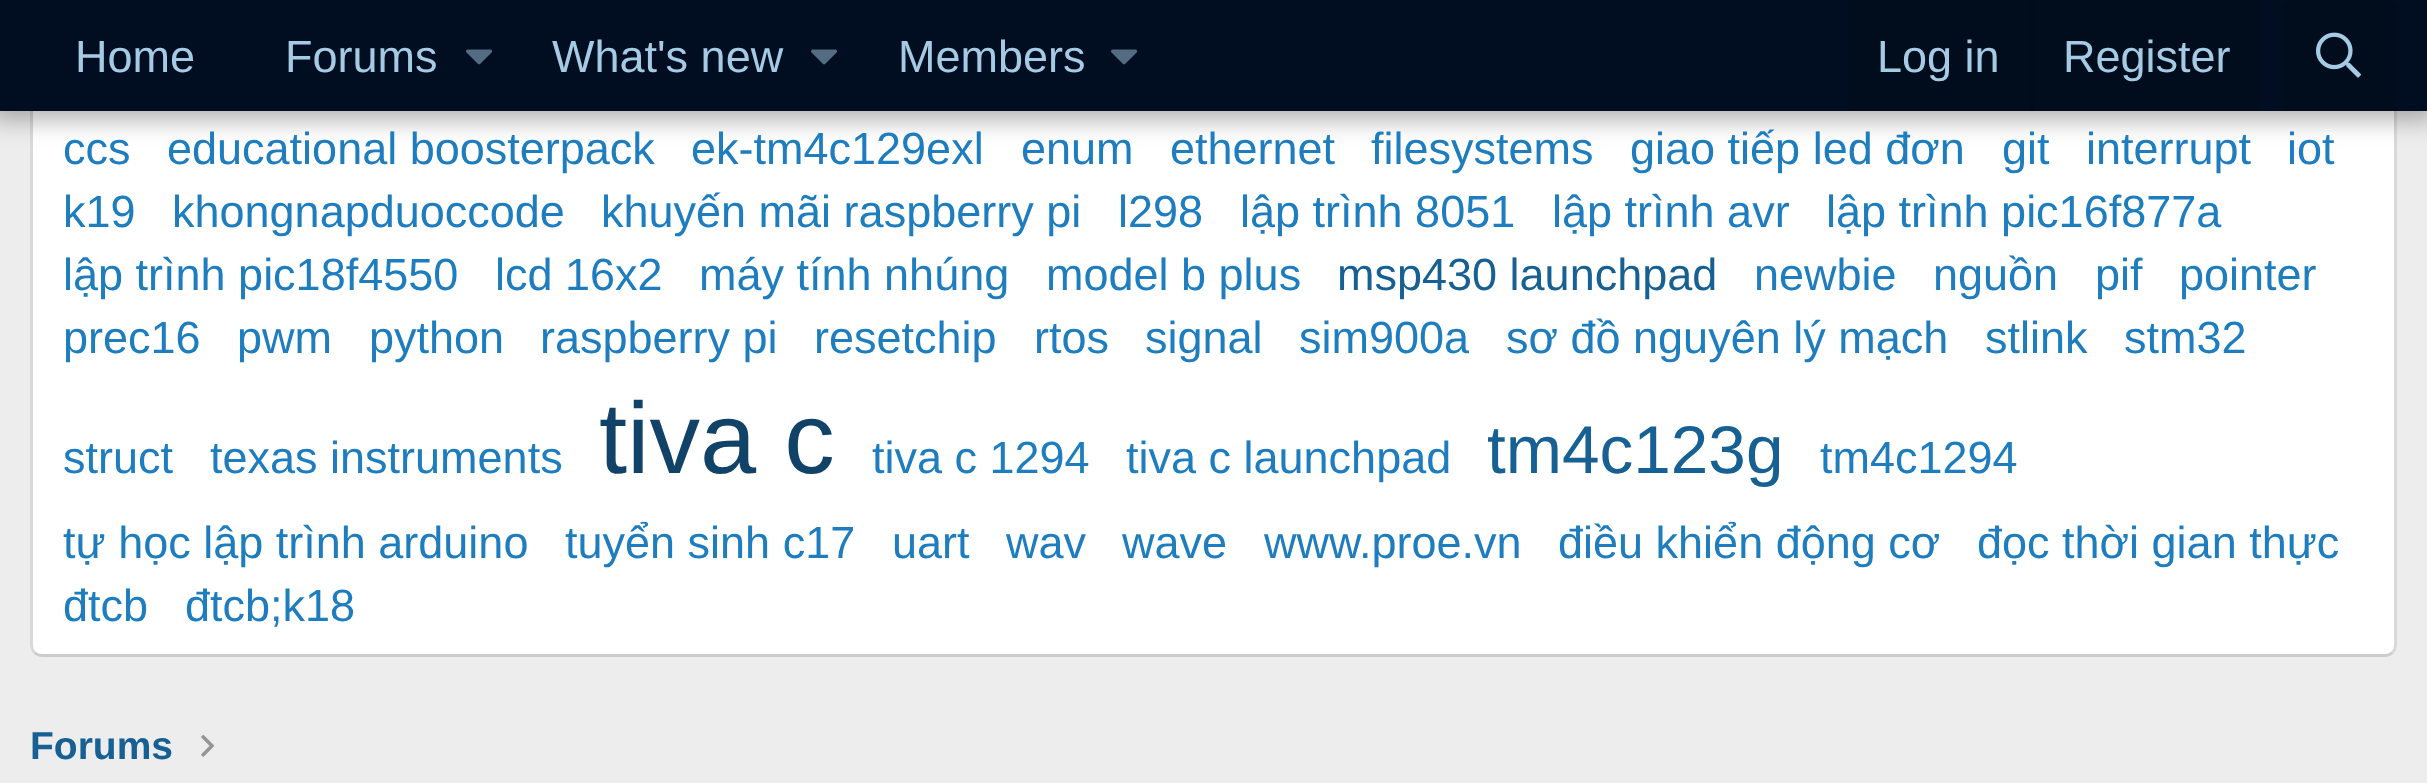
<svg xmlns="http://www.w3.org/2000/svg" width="2427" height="783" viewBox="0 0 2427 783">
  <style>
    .t1 { font: 45px Liberation Sans; fill: #a5cae4; }
    .t2 { font: 45px Liberation Sans; fill: #1e7dbf; }
    .t3 { font: 45px Liberation Sans; fill: #176093; }
    .t4 { font: 101px Liberation Sans; fill: #104367; }
    .t5 { font: 67.5px Liberation Sans; fill: #176093; }
    .t6 { font: bold 39px Liberation Sans; fill: #176093; }
  </style>
  <rect width="100%" height="100%" fill="#ededed"/>
  <rect x="30" y="-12" width="2367" height="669" rx="12" fill="#fff"/>
  <path d="M2392.5-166.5C2394.5-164.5 2395.5-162 2395.5-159V645C2395.5 648 2394.5 650.5 2392.5 652.5" fill="none" stroke="#d9d9d9" stroke-width="3"/>
  <path d="M2392.5 652.5C2390.5 654.5 2388 655.5 2385 655.5H42C39 655.5 36.5 654.5 34.5 652.5" fill="none" stroke="#ccc" stroke-width="3"/>
  <path d="M34.5 652.5C32.5 650.5 31.5 648 31.5 645V-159C31.5-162 32.5-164.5 34.5-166.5" fill="none" stroke="#d9d9d9" stroke-width="3"/>
  <rect x="-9" y="-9" width="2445" height="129" fill="#0000004d" filter="blur(12px)"/>
  <rect x="0" y="0" width="2427" height="111" fill="#010e21"/>
  <text x="75" y="72" class="t1">Home</text>
  <text x="285" y="72" class="t1">Forums</text>
  <image x="466" y="49" width="27" height="16" href="images/1.png"/>
  <text x="552" y="72" class="t1">What's new</text>
  <image x="811" y="49" width="27" height="16" href="images/1.png"/>
  <text x="898" y="72" class="t1">Members</text>
  <image x="1111" y="49" width="27" height="16" href="images/1.png"/>
  <rect x="1848" y="0" width="411" height="111" fill="#010c1c"/>
  <text x="1877" y="72" class="t1">Log in</text>
  <rect x="2031" y="0" width="3" height="111" fill="#010a18"/>
  <text x="2063" y="72" class="t1">Register</text>
  <path d="M2295 0H2385C2391.5 0 2397 5.5 2397 12V111H2283V12C2283 5.5 2288.5 0 2295 0Z" fill="#010c1c"/>
  <image x="2316" y="32" width="45" height="46" href="images/2.png"/>
  <text x="63" y="164" class="t2">ccs</text>
  <text x="167" y="164" class="t2">educational boosterpack</text>
  <text x="691" y="164" class="t2">ek-tm4c129exl</text>
  <text x="1021" y="164" class="t2">enum</text>
  <text x="1170" y="164" class="t2">ethernet</text>
  <text x="1371" y="164" class="t2">filesystems</text>
  <text x="1630" y="164" class="t2">giao tiếp led đơn</text>
  <text x="2002" y="164" class="t2">git</text>
  <text x="2086" y="164" class="t2">interrupt</text>
  <text x="2287" y="164" class="t2">iot</text>
  <text x="63" y="227" class="t2">k19</text>
  <text x="172" y="227" class="t2">khongnapduoccode</text>
  <text x="601" y="227" class="t2">khuyến mãi raspberry pi</text>
  <text x="1118" y="227" class="t2">l298</text>
  <text x="1240" y="227" class="t2">lập trình 8051</text>
  <text x="1552" y="227" class="t2">lập trình avr</text>
  <text x="1826" y="227" class="t2">lập trình pic16f877a</text>
  <text x="63" y="290" class="t2">lập trình pic18f4550</text>
  <text x="495" y="290" class="t2">lcd 16x2</text>
  <text x="699" y="290" class="t2">máy tính nhúng</text>
  <text x="1046" y="290" class="t2">model b plus</text>
  <text x="1337" y="290" class="t3">msp430 launchpad</text>
  <text x="1754" y="290" class="t2">newbie</text>
  <text x="1933" y="290" class="t2">nguồn</text>
  <text x="2095" y="290" class="t2">pif</text>
  <text x="2179" y="290" class="t2">pointer</text>
  <text x="63" y="353" class="t2">prec16</text>
  <text x="237" y="353" class="t2">pwm</text>
  <text x="369" y="353" class="t2">python</text>
  <text x="540" y="353" class="t2">raspberry pi</text>
  <text x="814" y="353" class="t2">resetchip</text>
  <text x="1034" y="353" class="t2">rtos</text>
  <text x="1145" y="353" class="t2">signal</text>
  <text x="1299" y="353" class="t2">sim900a</text>
  <text x="1506" y="353" class="t2">sơ đồ nguyên lý mạch</text>
  <text x="1985" y="353" class="t2">stlink</text>
  <text x="2124" y="353" class="t2">stm32</text>
  <text x="63" y="473" class="t2">struct</text>
  <text x="210" y="473" class="t2">texas instruments</text>
  <text x="599" y="473" class="t4">tiva c</text>
  <text x="872" y="473" class="t2">tiva c 1294</text>
  <text x="1126" y="473" class="t2">tiva c launchpad</text>
  <text x="1487" y="473" class="t5">tm4c123g</text>
  <text x="1820" y="473" class="t2">tm4c1294</text>
  <text x="63" y="558" class="t2">tự học lập trình arduino</text>
  <text x="565" y="558" class="t2">tuyển sinh c17</text>
  <text x="892" y="558" class="t2">uart</text>
  <text x="1006" y="558" class="t2">wav</text>
  <text x="1122" y="558" class="t2">wave</text>
  <text x="1264" y="558" class="t2">www.proe.vn</text>
  <text x="1558" y="558" class="t2">điều khiển động cơ</text>
  <text x="1977" y="558" class="t2">đọc thời gian thực</text>
  <text x="63" y="621" class="t2">đtcb</text>
  <text x="185" y="621" class="t2">đtcb;k18</text>
  <text x="30" y="759" class="t6">Forums</text>
  <image x="201" y="734" width="14" height="23" href="images/3.png"/>
</svg>
